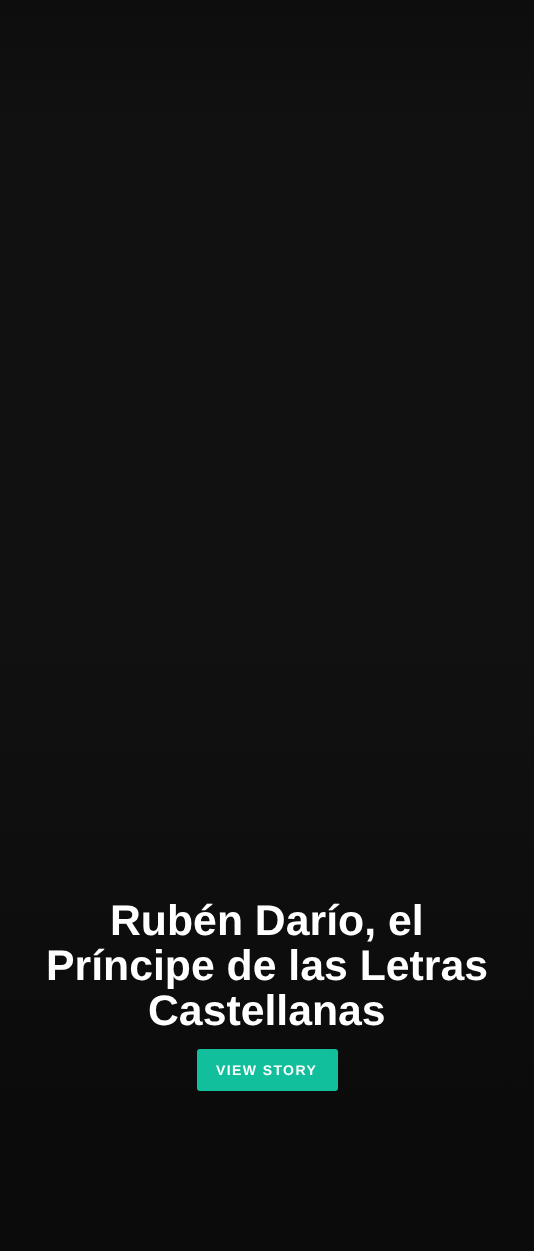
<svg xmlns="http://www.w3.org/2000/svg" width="534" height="1251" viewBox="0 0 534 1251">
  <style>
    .t1 { font: bold 42.75px Liberation Sans; fill: #fff; }
    .t2 { font: bold 14px Liberation Sans; letter-spacing: 1.4px; fill: #fff; }
  </style>
  <defs>
    <linearGradient id="g1" gradientUnits="userSpaceOnUse" x1="267" y1="0" x2="267" y2="1251"><stop offset="0" stop-color="#0d0d0d"/><stop offset="0.1" stop-color="#111"/><stop offset="0.5" stop-color="#111"/><stop offset="0.9" stop-color="#0b0b0b"/><stop offset="1" stop-color="#0b0b0b"/></linearGradient>
  </defs>
  <rect width="100%" height="100%" fill="#fff"/>
  <rect x="0" y="0" width="534" height="1251" fill="url(#g1)"/>
  <text x="110" y="935" class="t1">Rubén Darío, el</text>
  <text x="46" y="980" class="t1">Príncipe de las Letras</text>
  <text x="148" y="1025" class="t1">Castellanas</text>
  <rect x="197" y="1049" width="141" height="42" rx="3" fill="#12bf9c"/>
  <text x="216" y="1075" class="t2">VIEW STORY</text>
</svg>
